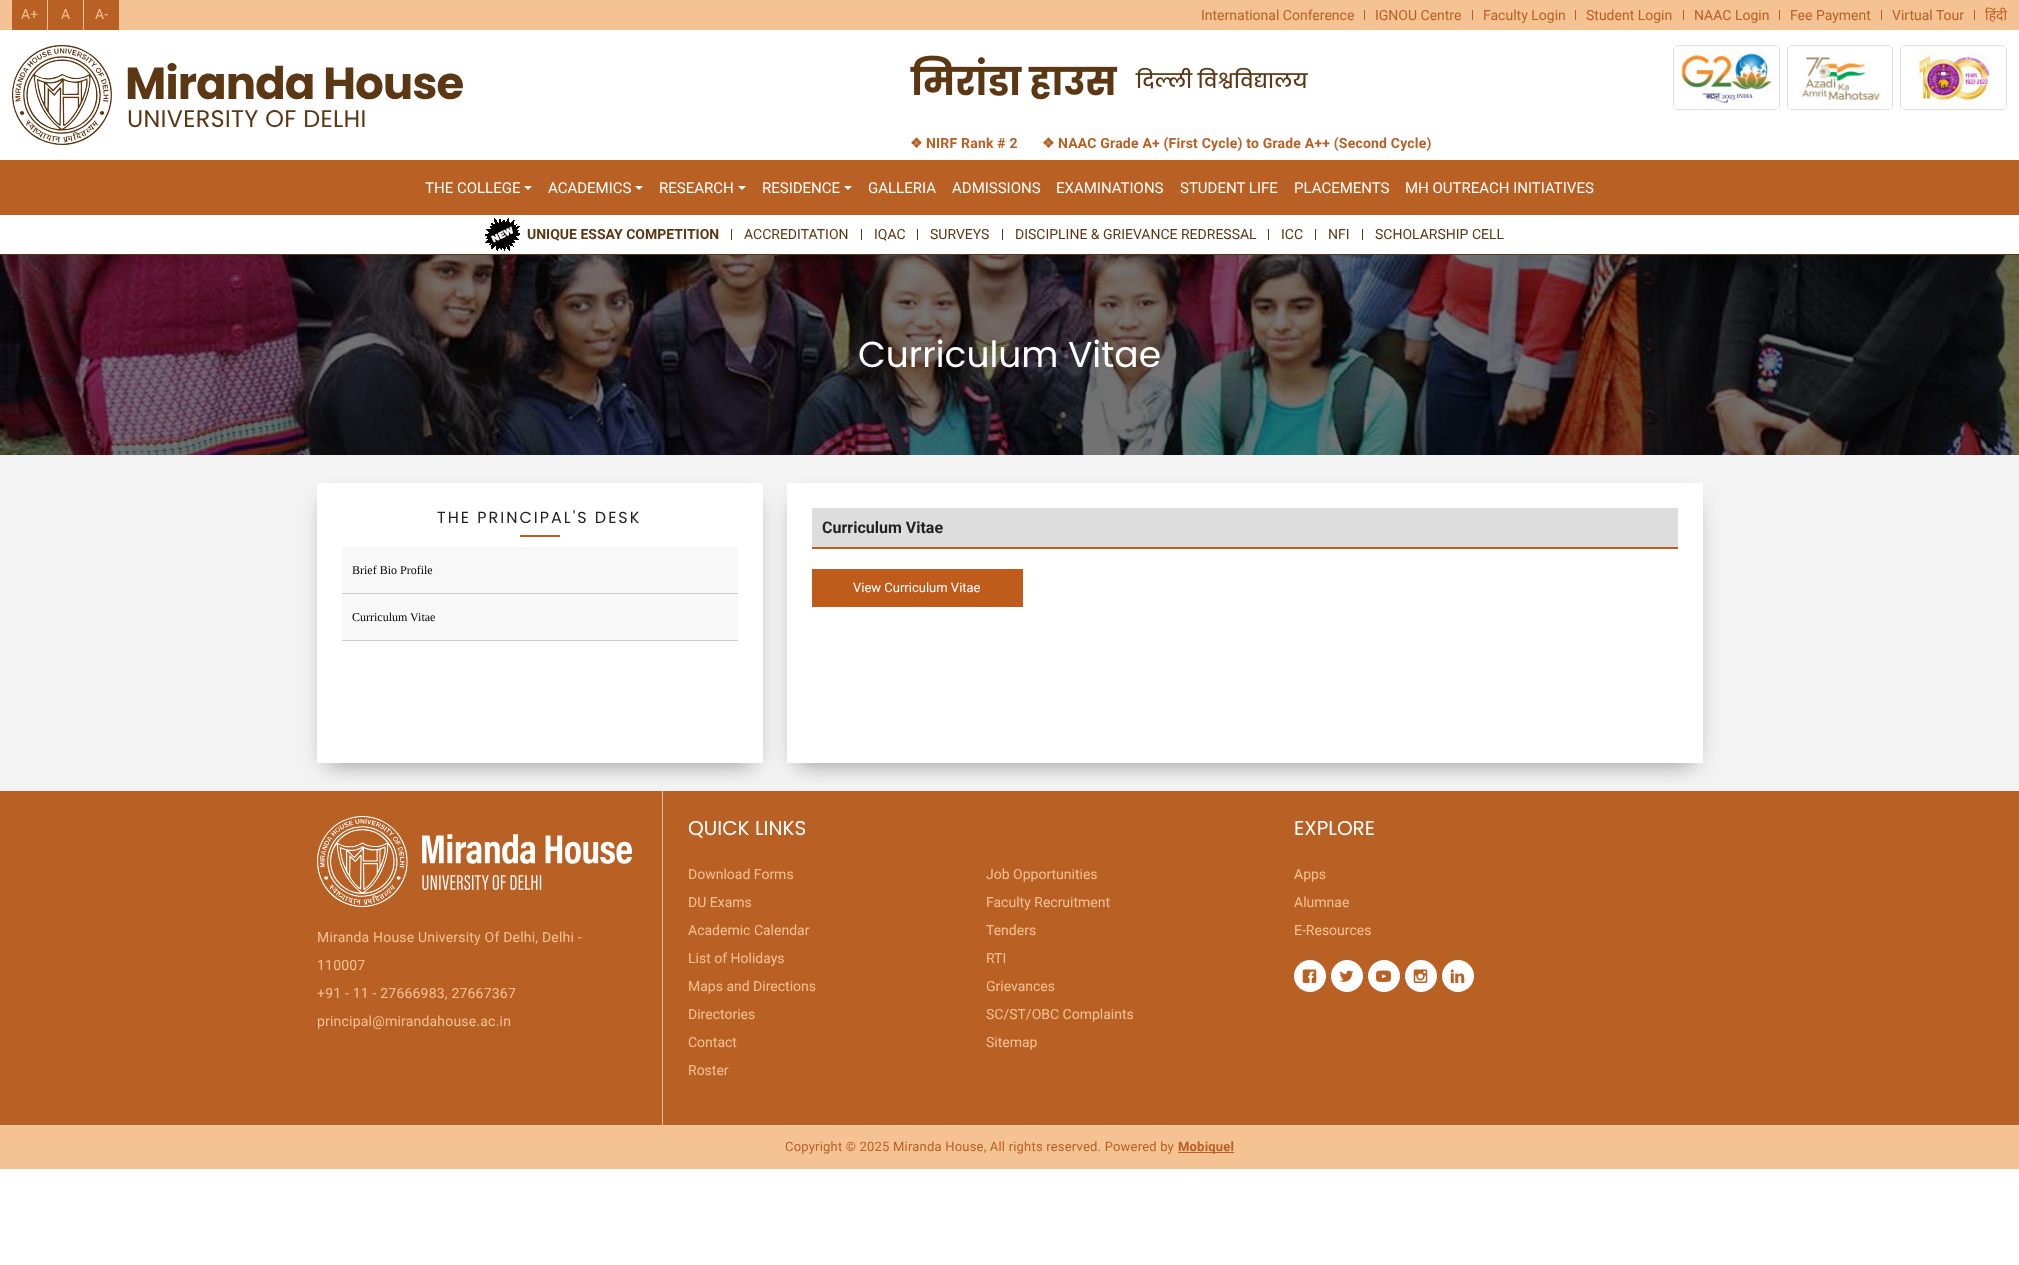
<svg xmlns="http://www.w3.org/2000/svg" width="2019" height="1265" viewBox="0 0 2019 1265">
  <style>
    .t1 { font: 14px Roboto; fill: #f5c293; }
    .t2 { font: 14px Roboto; fill: #b96025; }
    .t3 { font: 14px Noto Sans; fill: #b96025; }
    .t4 { font: bold 14px DejaVu Sans; letter-spacing: 0.2px; fill: #b96025; }
    .t5 { font: bold 14px Roboto; letter-spacing: 0.2px; fill: #b96025; }
    .t6 { font: 15px Roboto; fill: #fff; }
    .t7 { font: bold 14px Roboto; fill: #5c3713; }
    .t8 { font: 14px Roboto; fill: #5c3713; }
    .t9 { font: 36px Poppins; fill: #fff; }
    .t10 { font: 16px Poppins; letter-spacing: 2px; fill: #222; }
    .t11 { font: 12px Liberation Serif; fill: #000; }
    .t12 { font: bold 16px Roboto; fill: #222; }
    .t13 { font: 13px Roboto; fill: #fff; }
    .t14 { font: 14px Roboto; letter-spacing: 0.2px; fill: #f5c293; }
    .t15 { font: 20px Poppins; fill: #fff; }
    .t16 { font: 13px Roboto; letter-spacing: 0.2px; fill: #b96025; }
    .t17 { font: bold 13px Roboto; letter-spacing: 0.2px; fill: #b96025; }
  </style>
  <rect width="100%" height="100%" fill="#fff"/>
  <rect x="0" y="0" width="2019" height="30" fill="#f5c293"/>
  <rect x="12" y="0" width="35" height="30" fill="#b96025"/>
  <text x="21" y="19" class="t1">A+</text>
  <rect x="48" y="0" width="35" height="30" fill="#b96025"/>
  <text x="61" y="19" class="t1">A</text>
  <rect x="84" y="0" width="35" height="30" fill="#b96025"/>
  <text x="95" y="19" class="t1">A-</text>
  <rect x="1364" y="10" width="1" height="10" fill="#b96025"/>
  <text x="1201" y="20" class="t2">International Conference</text>
  <rect x="1472" y="10" width="1" height="10" fill="#b96025"/>
  <text x="1375" y="20" class="t2">IGNOU Centre</text>
  <rect x="1575" y="10" width="1" height="10" fill="#b96025"/>
  <text x="1483" y="20" class="t2">Faculty Login</text>
  <rect x="1683" y="10" width="1" height="10" fill="#b96025"/>
  <text x="1586" y="20" class="t2">Student Login</text>
  <rect x="1779" y="10" width="1" height="10" fill="#b96025"/>
  <text x="1694" y="20" class="t2">NAAC Login</text>
  <rect x="1881" y="10" width="1" height="10" fill="#b96025"/>
  <text x="1790" y="20" class="t2">Fee Payment</text>
  <rect x="1974" y="10" width="1" height="10" fill="#b96025"/>
  <text x="1892" y="20" class="t2">Virtual Tour</text>
  <text x="1985" y="20" class="t3">हिंदी</text>
  <image x="12" y="45" width="451" height="100" href="images/1.png"/>
  <image x="910" y="55" width="398" height="45" href="images/2.png"/>
  <rect x="1673.5" y="45.5" width="106" height="64" rx="4.5" fill="none" stroke="#ddd"/>
  <image x="1674" y="46" width="105" height="63" href="images/3.png"/>
  <rect x="1787.5" y="45.5" width="105" height="64" rx="4.5" fill="none" stroke="#ddd"/>
  <image x="1788" y="46" width="104" height="63" href="images/4.png"/>
  <rect x="1900.5" y="45.5" width="106" height="64" rx="4.5" fill="none" stroke="#ddd"/>
  <image x="1901" y="46" width="105" height="63" href="images/5.png"/>
  <text x="910" y="148" class="t4">❖</text>
  <text x="926" y="148" class="t5">NIRF Rank # 2</text>
  <text x="1042" y="148" class="t4">❖</text>
  <text x="1058" y="148" class="t5">NAAC Grade A+ (First Cycle) to Grade A++ (Second Cycle)</text>
  <rect x="0" y="160" width="2019" height="55" fill="#b96025"/>
  <text x="425" y="193" class="t6">THE COLLEGE</text>
  <path d="M524 186H532L528 190Z" fill="#fff"/>
  <text x="548" y="193" class="t6">ACADEMICS</text>
  <path d="M635 186H643L639 190Z" fill="#fff"/>
  <text x="659" y="193" class="t6">RESEARCH</text>
  <path d="M738 186H746L742 190Z" fill="#fff"/>
  <text x="762" y="193" class="t6">RESIDENCE</text>
  <path d="M844 186H852L848 190Z" fill="#fff"/>
  <text x="868" y="193" class="t6">GALLERIA</text>
  <text x="952" y="193" class="t6">ADMISSIONS</text>
  <text x="1056" y="193" class="t6">EXAMINATIONS</text>
  <text x="1180" y="193" class="t6">STUDENT LIFE</text>
  <text x="1294" y="193" class="t6">PLACEMENTS</text>
  <text x="1405" y="193" class="t6">MH OUTREACH INITIATIVES</text>
  <rect x="0" y="254" width="2019" height="1" fill="#5c3713"/>
  <rect x="731" y="229" width="1" height="11" fill="#5c3713"/>
  <image x="485" y="218" width="35" height="33" href="images/6.png"/>
  <text x="527" y="239" class="t7">UNIQUE ESSAY COMPETITION</text>
  <rect x="861" y="229" width="1" height="11" fill="#5c3713"/>
  <text x="744" y="239" class="t8">ACCREDITATION</text>
  <rect x="917" y="229" width="1" height="11" fill="#5c3713"/>
  <text x="874" y="239" class="t8">IQAC</text>
  <rect x="1002" y="229" width="1" height="11" fill="#5c3713"/>
  <text x="930" y="239" class="t8">SURVEYS</text>
  <rect x="1268" y="229" width="1" height="11" fill="#5c3713"/>
  <text x="1015" y="239" class="t8">DISCIPLINE &amp; GRIEVANCE REDRESSAL</text>
  <rect x="1315" y="229" width="1" height="11" fill="#5c3713"/>
  <text x="1281" y="239" class="t8">ICC</text>
  <rect x="1362" y="229" width="1" height="11" fill="#5c3713"/>
  <text x="1328" y="239" class="t8">NFI</text>
  <text x="1375" y="239" class="t8">SCHOLARSHIP CELL</text>
  <image x="0" y="255" width="2019" height="200" href="images/7.png"/>
  <text x="858" y="367" class="t9">Curriculum Vitae</text>
  <rect x="0" y="455" width="2019" height="336" fill="#f3f3f3"/>
  <rect x="797" y="503" width="896" height="260" fill="#0000006e" filter="blur(11.5px)"/>
  <rect x="787" y="483" width="916" height="280" fill="#fff"/>
  <rect x="0" y="791" width="2019" height="334" fill="#b96025"/>
  <rect x="662" y="791" width="1" height="334" fill="#f5c293"/>
  <rect x="327" y="503" width="426" height="260" fill="#0000006e" filter="blur(11.5px)"/>
  <rect x="317" y="483" width="446" height="280" fill="#fff"/>
  <text x="437" y="523" class="t10">THE PRINCIPAL'S DESK</text>
  <rect x="520" y="535" width="40" height="2" fill="#c05c1b"/>
  <rect x="342" y="547" width="396" height="46" fill="#f8f8f8"/>
  <rect x="342" y="593" width="396" height="1" fill="#ccc"/>
  <text x="352" y="574" class="t11">Brief Bio Profile</text>
  <rect x="342" y="594" width="396" height="46" fill="#f8f8f8"/>
  <rect x="342" y="640" width="396" height="1" fill="#ccc"/>
  <text x="352" y="621" class="t11">Curriculum Vitae</text>
  <rect x="812" y="508" width="866" height="39" fill="#ddd"/>
  <rect x="812" y="547" width="866" height="2" fill="#c05c1b"/>
  <text x="822" y="533" class="t12">Curriculum Vitae</text>
  <rect x="812" y="569" width="211" height="38" fill="#c05c1b"/>
  <text x="853" y="592" class="t13">View Curriculum Vitae</text>
  <image x="317" y="816" width="315" height="91" href="images/8.png"/>
  <text x="317" y="942" class="t14">Miranda House University Of Delhi, Delhi -</text>
  <text x="317" y="970" class="t14">110007</text>
  <text x="317" y="998" class="t14">+91 - 11 - 27666983, 27667367</text>
  <text x="317" y="1026" class="t14">principal@mirandahouse.ac.in</text>
  <text x="688" y="835" class="t15">QUICK LINKS</text>
  <text x="688" y="879" class="t1">Download Forms</text>
  <text x="986" y="879" class="t1">Job Opportunities</text>
  <text x="688" y="907" class="t1">DU Exams</text>
  <text x="986" y="907" class="t1">Faculty Recruitment</text>
  <text x="688" y="935" class="t1">Academic Calendar</text>
  <text x="986" y="935" class="t1">Tenders</text>
  <text x="688" y="963" class="t1">List of Holidays</text>
  <text x="986" y="963" class="t1">RTI</text>
  <text x="688" y="991" class="t1">Maps and Directions</text>
  <text x="986" y="991" class="t1">Grievances</text>
  <text x="688" y="1019" class="t1">Directories</text>
  <text x="986" y="1019" class="t1">SC/ST/OBC Complaints</text>
  <text x="688" y="1047" class="t1">Contact</text>
  <text x="986" y="1047" class="t1">Sitemap</text>
  <text x="688" y="1075" class="t1">Roster</text>
  <text x="1294" y="835" class="t15">EXPLORE</text>
  <text x="1294" y="879" class="t1">Apps</text>
  <text x="1294" y="907" class="t1">Alumnae</text>
  <text x="1294" y="935" class="t1">E-Resources</text>
  <circle cx="1310" cy="976" r="16" fill="#fff"/>
  <image x="1302" y="969" width="15" height="14" href="images/9.png"/>
  <circle cx="1347" cy="976" r="16" fill="#fff"/>
  <image x="1339" y="970" width="15" height="12" href="images/10.png"/>
  <circle cx="1384" cy="976" r="16" fill="#fff"/>
  <image x="1376" y="970" width="15" height="12" href="images/11.png"/>
  <circle cx="1421" cy="976" r="16" fill="#fff"/>
  <image x="1413" y="969" width="15" height="14" href="images/12.png"/>
  <circle cx="1458" cy="976" r="16" fill="#fff"/>
  <image x="1450" y="969" width="15" height="14" href="images/13.png"/>
  <rect x="0" y="1125" width="2019" height="44" fill="#f5c293"/>
  <text x="785" y="1151" class="t16">Copyright © 2025 Miranda House, All rights reserved. Powered by</text>
  <rect x="1178" y="1152" width="56" height="1" fill="#b96025"/>
  <text x="1178" y="1151" class="t17">Mobiquel</text>
</svg>
